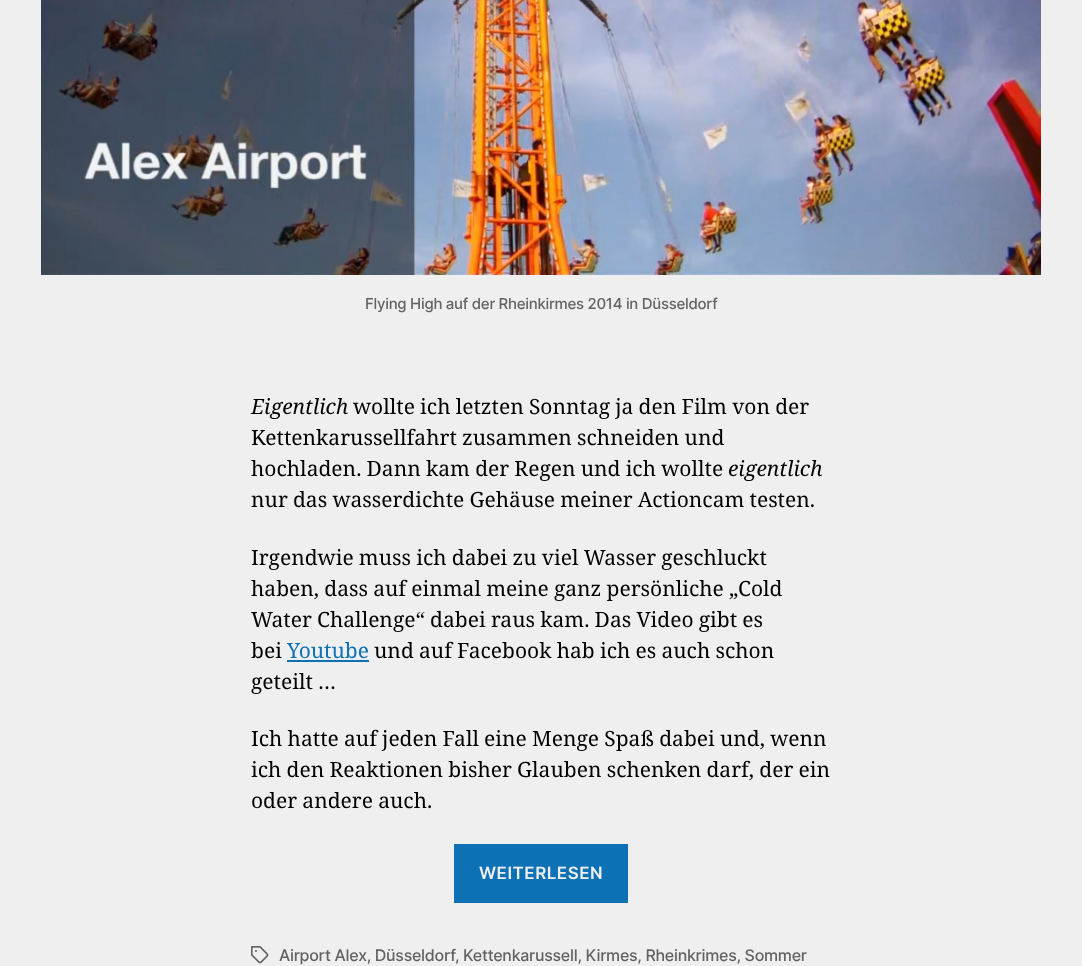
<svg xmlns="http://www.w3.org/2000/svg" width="1082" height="966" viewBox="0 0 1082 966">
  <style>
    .t1 { font: 500 15px Inter; letter-spacing: -0.27px; fill: #636363; }
    .t2 { font: italic 21px Noto Serif; fill: #000; }
    .t3 { font: 21px Noto Serif; fill: #000; }
    .t4 { font: 21px Noto Serif; fill: #0c71b5; }
    .t5 { font: 600 17px Inter; letter-spacing: 0.5px; fill: #efefef; }
    .t6 { font: 500 16px Inter; letter-spacing: -0.27px; fill: #636363; }
  </style>
  <rect width="100%" height="100%" fill="#efefef"/>
  <image x="41" y="0" width="1000" height="275" href="images/1.png"/>
  <text x="365" y="309" class="t1">Flying High auf der Rheinkirmes 2014 in Düsseldorf</text>
  <text x="251" y="414" class="t2">Eigentlich</text>
  <text x="353" y="414" word-spacing="-0.25" class="t3">wollte ich letzten Sonntag ja den Film von der</text>
  <text x="251" y="445" word-spacing="-0.25" class="t3">Kettenkarussellfahrt zusammen schneiden und</text>
  <text x="251" y="476" word-spacing="-0.25" class="t3">hochladen. Dann kam der Regen und ich wollte</text>
  <text x="728" y="476" class="t2">eigentlich</text>
  <text x="251" y="507" word-spacing="-0.25" class="t3">nur das wasserdichte Gehäuse meiner Actioncam testen.</text>
  <text x="251" y="565" word-spacing="-0.25" class="t3">Irgendwie muss ich dabei zu viel Wasser geschluckt</text>
  <text x="251" y="596" word-spacing="-0.25" class="t3">haben, dass auf einmal meine ganz persönliche „Cold</text>
  <text x="251" y="627" word-spacing="-0.25" class="t3">Water Challenge“ dabei raus kam. Das Video gibt es</text>
  <text x="251" y="658" class="t3">bei</text>
  <text x="287" y="658" class="t4">Youtube</text>
  <rect x="287" y="660" width="82" height="2" fill="#0c71b5"/>
  <text x="374" y="658" word-spacing="-0.25" class="t3">und auf Facebook hab ich es auch schon</text>
  <text x="251" y="689" word-spacing="-0.25" class="t3">geteilt …</text>
  <text x="251" y="746" word-spacing="-0.25" class="t3">Ich hatte auf jeden Fall eine Menge Spaß dabei und, wenn</text>
  <text x="251" y="777" word-spacing="-0.25" class="t3">ich den Reaktionen bisher Glauben schenken darf, der ein</text>
  <text x="251" y="808" word-spacing="-0.25" class="t3">oder andere auch.</text>
  <rect x="454" y="844" width="174" height="59" fill="#0c71b5"/>
  <text x="479" y="879" class="t5">WEITERLESEN</text>
  <image x="251" y="946" width="18" height="18" href="images/2.png"/>
  <text x="279" y="961" class="t6">Airport Alex, Düsseldorf</text>
  <text x="455" y="961" class="t6">, Kettenkarussell, Kirmes, Rheinkrimes, Sommer</text>
</svg>
